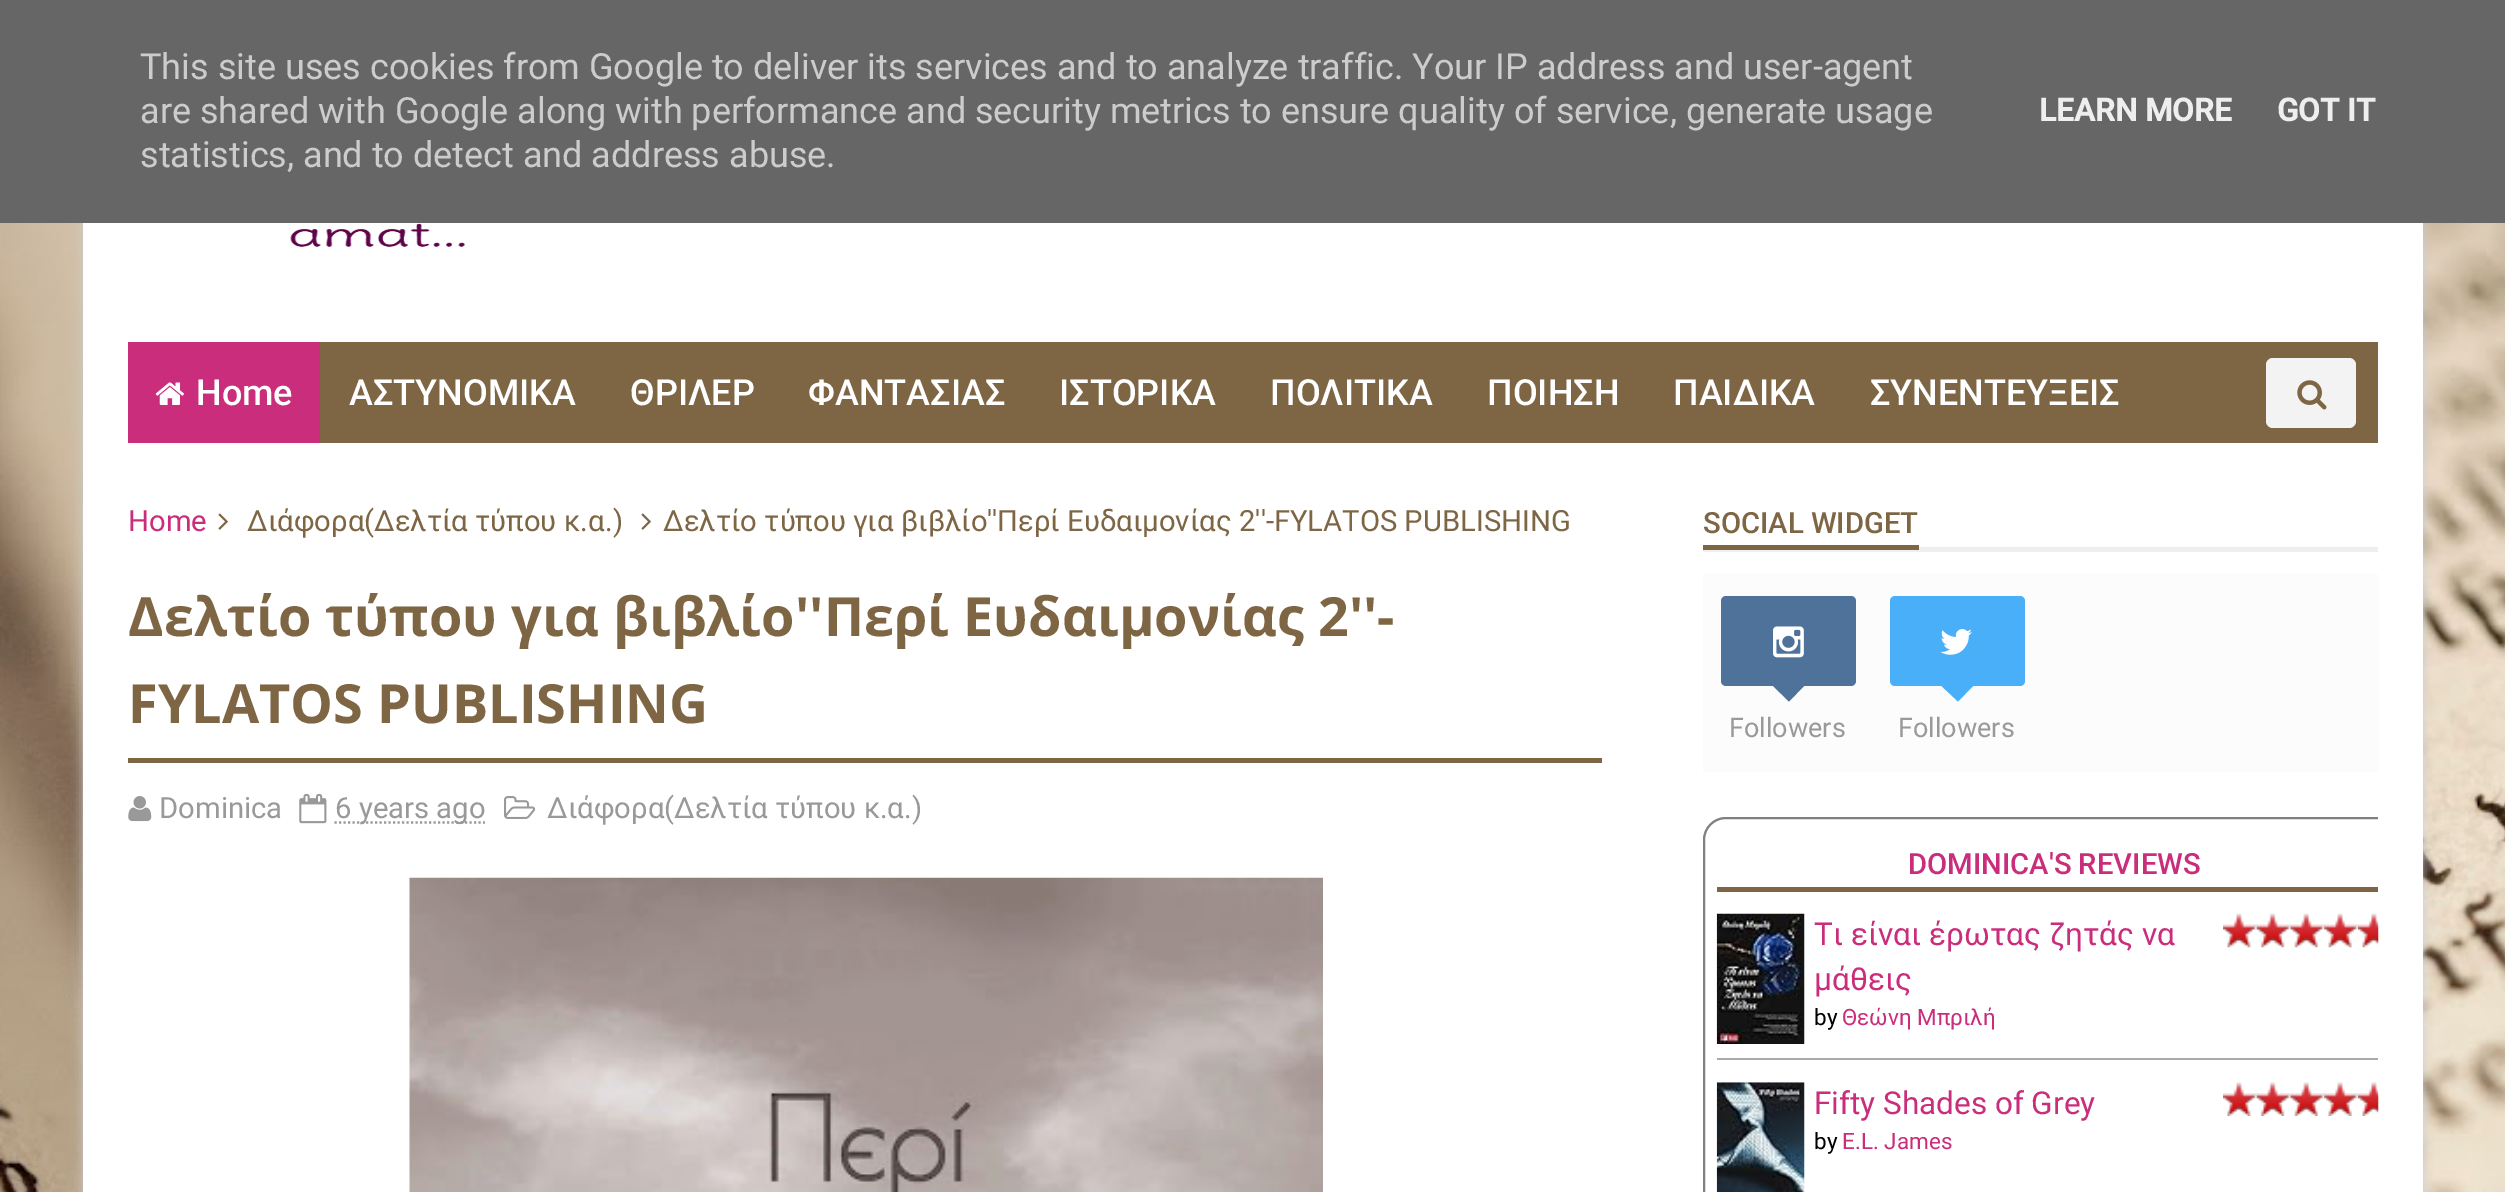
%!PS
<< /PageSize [2505 1192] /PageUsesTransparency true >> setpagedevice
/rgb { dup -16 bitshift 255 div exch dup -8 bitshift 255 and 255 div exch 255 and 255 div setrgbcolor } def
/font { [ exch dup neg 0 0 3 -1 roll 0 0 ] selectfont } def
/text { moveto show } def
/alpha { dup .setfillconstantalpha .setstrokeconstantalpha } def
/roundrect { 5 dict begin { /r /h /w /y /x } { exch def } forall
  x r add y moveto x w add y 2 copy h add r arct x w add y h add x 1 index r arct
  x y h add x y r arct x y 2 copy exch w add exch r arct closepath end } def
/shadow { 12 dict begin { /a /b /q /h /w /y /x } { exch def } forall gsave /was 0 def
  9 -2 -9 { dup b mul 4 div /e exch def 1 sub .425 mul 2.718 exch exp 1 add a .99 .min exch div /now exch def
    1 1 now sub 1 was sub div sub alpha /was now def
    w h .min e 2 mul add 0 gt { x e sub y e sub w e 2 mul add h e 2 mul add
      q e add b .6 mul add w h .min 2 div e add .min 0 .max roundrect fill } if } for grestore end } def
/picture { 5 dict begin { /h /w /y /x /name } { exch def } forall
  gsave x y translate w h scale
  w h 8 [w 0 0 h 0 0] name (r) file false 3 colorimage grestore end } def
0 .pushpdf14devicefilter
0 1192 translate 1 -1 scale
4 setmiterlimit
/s1 { /Roboto-Regular 36 font 16#CCCCCC rgb } def
/s2 { /Roboto-Bold 31.5 font 16#EEEEEE rgb } def
/s3 { /Roboto-Medium 36 font 16#FFFFFF rgb } def
/s4 { /Roboto-Regular 29.25 font 16#CA2D7B rgb } def
/s5 { /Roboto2-Regular 29.25 font 16#7E6645 rgb } def
/s6 { /Roboto-Regular 29.25 font 16#7E6645 rgb } def
/s7 { /OpenSans-Bold 54 font 16#7E6645 rgb } def
/s8 { /Roboto-Regular 29.25 font 16#999999 rgb } def
/s9 { /Roboto2-Regular 29.25 font 16#999999 rgb } def
/s10 { /Roboto-Medium 29.25 font 16#7E6645 rgb } def
/s11 { /Roboto-Regular 27 font 16#999999 rgb } def
/s12 { /Roboto-Medium 29.25 font 16#CA2D7B rgb } def
/s13 { /Roboto2-Regular 31.5 font 16#CA2D7B rgb } def
/s14 { /Roboto-Regular 22.5 font 16#000000 rgb } def
/s15 { /Roboto2-Regular 22.5 font 16#CA2D7B rgb } def
/s16 { /Roboto-Regular 31.5 font 16#CA2D7B rgb } def
/s17 { /Roboto-Regular 22.5 font 16#CA2D7B rgb } def
16#FFFFFF rgb
0 0 2505 1192 rectfill
(pic1.raw) 0 223 2505 969 picture
16#CCCCCC rgb
83 0 2340 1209 0 5.5 1 shadow
16#666666 rgb
0 0 2505 223 rectfill
s1
(This site uses cookies from Google to deliver its services and to analyze traffic. Your IP address and user-agent) 140 79 text
(are shared with Google along with performance and security metrics to ensure quality of service, generate usage) 140 123 text
(statistics, and to detect and address abuse.) 140 167 text
s2
(LEARN MORE) 2039 121 text
(GOT IT) 2277 121 text
16#FFFFFF rgb
83 223 2340 969 rectfill
(pic2.raw) 290 223 176 24 picture
16#7E6645 rgb
320 342 2058 101 rectfill
16#CA2D7B rgb
128 342 192 101 rectfill
(pic3.raw) 155 382 29 23 picture
s3
(Home) 196 405 text
(ΑΣΤΥΝΟΜΙΚΑ) 349 405 text
(ΘΡΙΛΕΡ) 630 405 text
(ΦΑΝΤΑΣΙΑΣ) 808 405 text
(ΙΣΤΟΡΙΚΑ) 1059 405 text
(ΠΟΛΙΤΙΚΑ) 1270 405 text
(ΠΟΙΗΣΗ) 1487 405 text
(ΠΑΙΔΙΚΑ) 1673 405 text
(ΣΥΝΕΝΤΕΥΞΕΙΣ) 1870 405 text
16#F3F3F3 rgb
2266 358 90 70 7 roundrect fill
(pic4.raw) 2297 380 30 30 picture
s4
(Home) 128 531 text
(pic5.raw) 218 513 10 17 picture
s5
(Διάφορα) 247 531 text
s6
(\() 364 531 text
s5
(Δελτία τύπου κ) 374 531 text
s6
(.) 580 531 text
s5
(α) 588 531 text
s6
(.\)) 605 531 text
(pic5.raw) 641 513 10 17 picture
s5
(Δελτίο τύπου για βιβλίο) 663 531 text
s6
('') 987 531 text
s5
(Περί Ευδαιμονίας) 997 531 text
s6
(2''-FYLATOS PUBLISHING) 1239 531 text
128 758 1474 5 rectfill
s7
(Δελτίο τύπου για βιβλίο''Περί Ευδαιμονίας 2''-) 128 636 text
(FYLATOS PUBLISHING) 128 723 text
(pic6.raw) 128 796 24 26 picture
s8
(Dominica) 159 818 text
(pic7.raw) 299 793 28 31 picture
2.2 setlinewidth
[2.25 2.25] 0 setdash
334.5 822.5 moveto 485 822.5 lineto stroke
(6 years ago) 335 818 text
(pic8.raw) 504 796 32 23 picture
s9
(Διάφορα) 547 818 text
s8
(\() 664 818 text
s9
(Δελτία τύπου κ) 674 818 text
s8
(.) 880 818 text
s9
(α) 887 818 text
s8
(.\)) 904 818 text
(pic9.raw) 409 877 914 315 picture
16#EEEEEE rgb
1703 547 675 5 rectfill
16#7E6645 rgb
1703 545 216 5 rectfill
s10
(SOCIAL WIDGET) 1703 533 text
16#FCFCFC rgb
1703 574 675 198 rectfill
16#4E729A rgb
1721 596 135 90 5 roundrect fill
(pic10.raw) 1773 626 31 32 picture
1789 701.5 moveto 1773 686 lineto 1788.5 670 lineto 1804.5 685.5 lineto closepath fill
s11
(Followers) 1729 737 text
16#49AFF8 rgb
1890 596 135 90 5 roundrect fill
(pic11.raw) 1940 629 32 26 picture
1958 701.5 moveto 1941.5 686 lineto 1957.5 670 lineto 1973.5 685.5 lineto closepath fill
s11
(Followers) 1898 737 text
gsave
1703 817 675 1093 rectclip
16#808080 rgb
2 setlinewidth
[] 0 setdash
1704 818 700 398 22 roundrect stroke
grestore
16#7E6645 rgb
1717 887 661 5 rectfill
s12
(DOMINICA'S REVIEWS) 1908 874 text
16#AAAAAA rgb
1717 1058 661 2 rectfill
(pic12.raw) 1716 913 89 131 picture
s13
(Τι είναι έρωτας ζητάς να) 1814 945 text
(μάθεις) 1814 990 text
(pic13.raw) 2223 913 34 35 picture
(pic14.raw) 2256 913 35 35 picture
(pic15.raw) 2290 913 35 35 picture
(pic16.raw) 2324 913 34 35 picture
(pic17.raw) 2358 913 21 35 picture
s14
(by) 1814 1025 text
s15
(Θεώνη Μπριλή) 1842 1025 text
(pic18.raw) 1716 1082 89 110 picture
s16
(Fifty Shades of Grey) 1814 1114 text
(pic19.raw) 2223 1082 34 34 picture
(pic20.raw) 2256 1082 35 34 picture
(pic21.raw) 2290 1082 35 34 picture
(pic22.raw) 2324 1082 34 34 picture
(pic23.raw) 2358 1082 21 34 picture
s14
(by) 1814 1149 text
s17
(E.L. James) 1842 1149 text
.poppdf14devicefilter showpage
